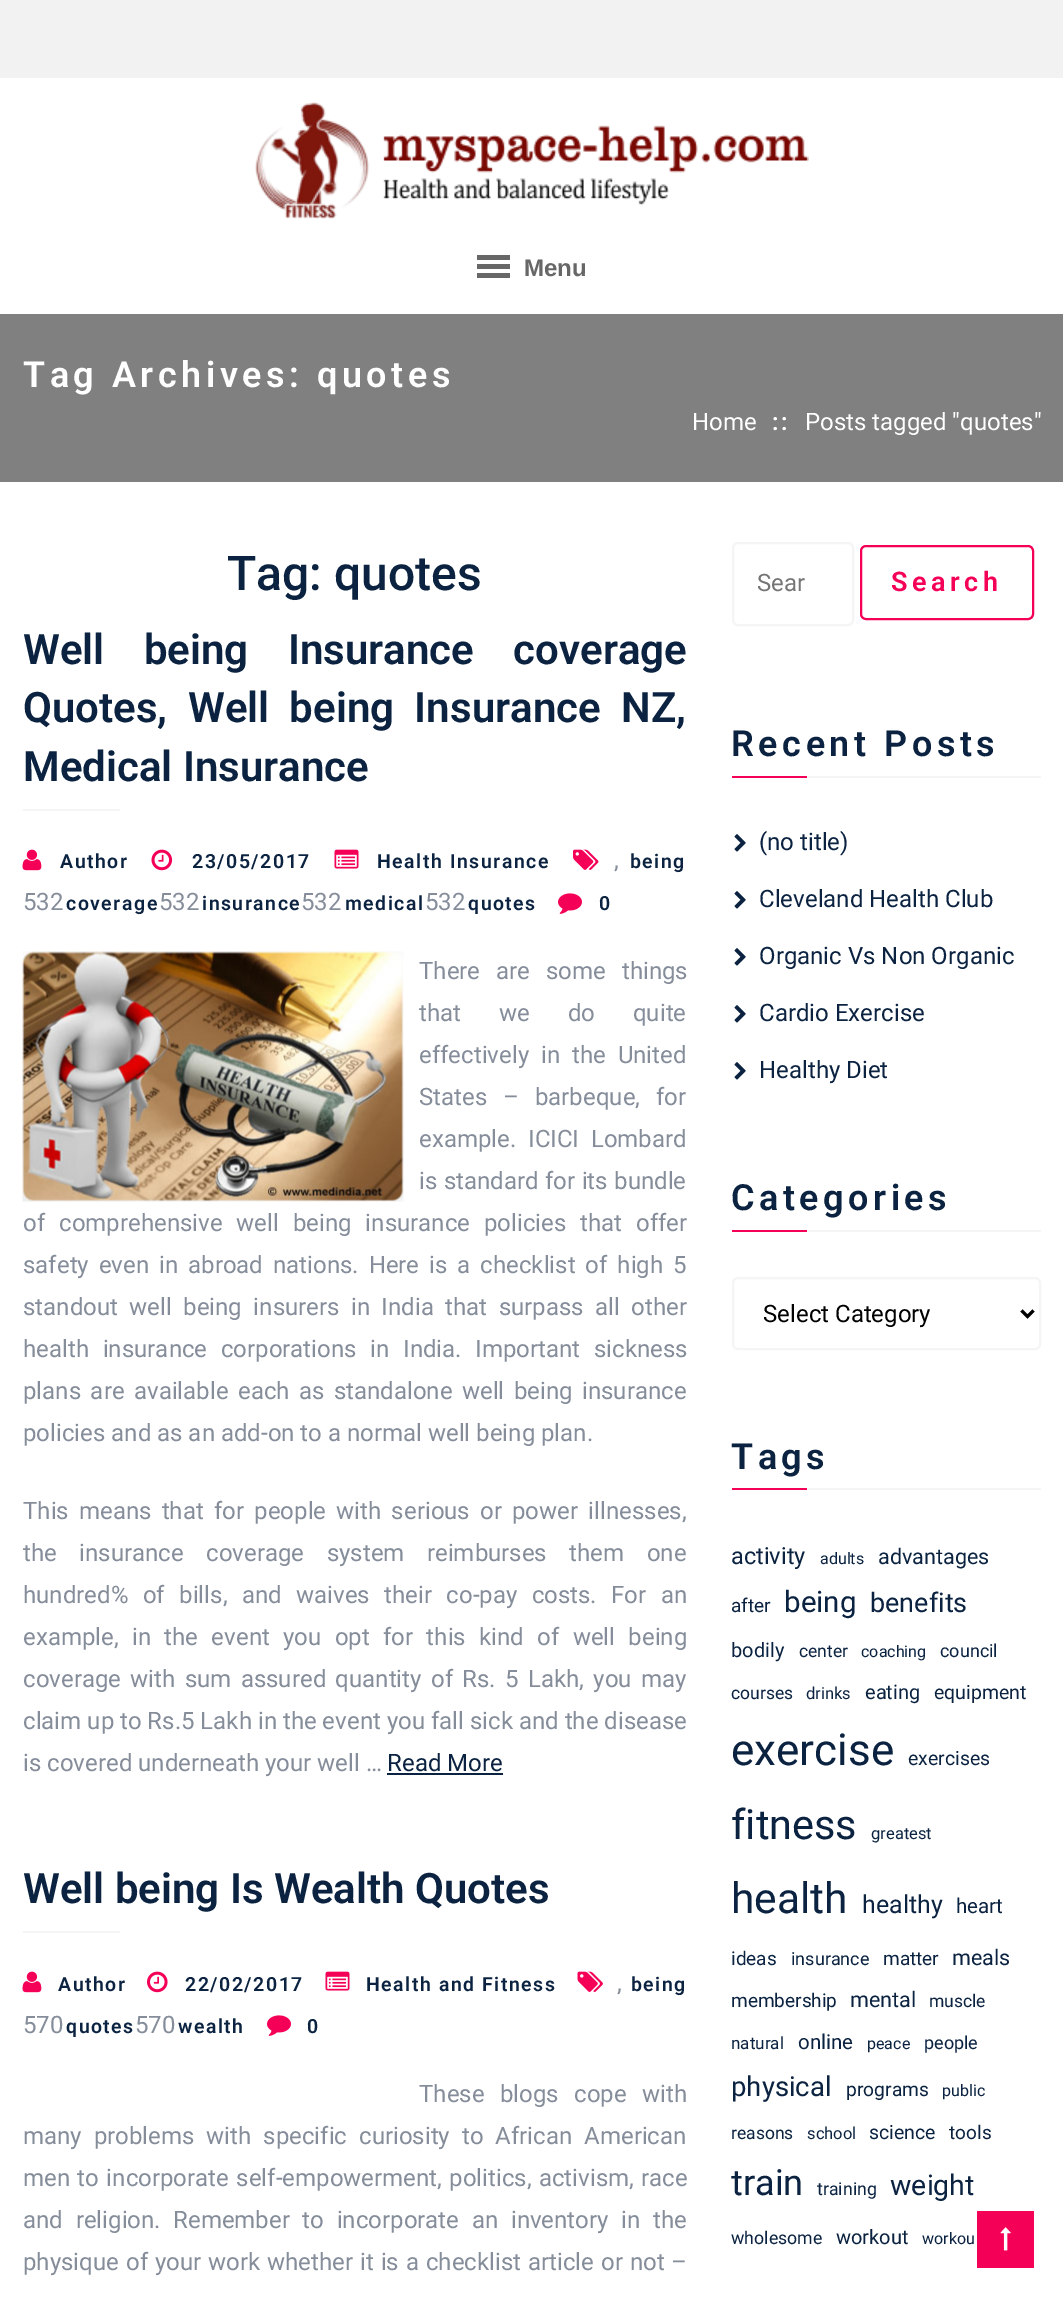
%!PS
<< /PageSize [1063 2297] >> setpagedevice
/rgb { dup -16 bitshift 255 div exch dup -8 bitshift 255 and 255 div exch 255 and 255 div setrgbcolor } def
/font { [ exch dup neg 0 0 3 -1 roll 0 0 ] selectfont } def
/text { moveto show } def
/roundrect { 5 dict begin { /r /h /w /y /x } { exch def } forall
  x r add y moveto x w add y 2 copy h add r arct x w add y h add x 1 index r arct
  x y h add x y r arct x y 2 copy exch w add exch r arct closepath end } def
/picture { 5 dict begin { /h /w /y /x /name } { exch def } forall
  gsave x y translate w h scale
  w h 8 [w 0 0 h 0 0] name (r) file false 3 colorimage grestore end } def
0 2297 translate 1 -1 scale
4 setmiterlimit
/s1 { /LiberationSans-Bold 24 font 16#676767 rgb } def
/s2 { /Roboto-Regular 24 font 16#FFFFFF rgb } def
/s3 { /Roboto-Medium 48 font 16#0B2341 rgb } def
/s4 { /Roboto-SemiBold 42 font 16#0B2341 rgb } def
/s5 { /Roboto-Regular 24 font 16#858D9A rgb } def
/s6 { /Roboto-Regular 24 font 16#0B2341 rgb } def
/s7 { /Roboto-Regular 24 font 16#757575 rgb } def
/s8 { /Roboto-Regular 24 font 16#000000 rgb } def
/s9 { /Roboto-Regular 23.5 font 16#0B2341 rgb } def
/s10 { /Roboto-Regular 16 font 16#0B2341 rgb } def
/s11 { /Roboto-Regular 21.5 font 16#0B2341 rgb } def
/s12 { /Roboto-Regular 19 font 16#0B2341 rgb } def
/s13 { /Roboto-Regular 29.5 font 16#0B2341 rgb } def
/s14 { /Roboto-Regular 27 font 16#0B2341 rgb } def
/s15 { /Roboto-Regular 20 font 16#0B2341 rgb } def
/s16 { /Roboto-Regular 17.5 font 16#0B2341 rgb } def
/s17 { /Roboto-Regular 18 font 16#0B2341 rgb } def
/s18 { /Roboto-Regular 16.5 font 16#0B2341 rgb } def
/s19 { /Roboto-Regular 19.5 font 16#0B2341 rgb } def
/s20 { /Roboto-Regular 44 font 16#0B2341 rgb } def
/s21 { /Roboto-Regular 41.5 font 16#0B2341 rgb } def
/s22 { /Roboto-Regular 42.5 font 16#0B2341 rgb } def
/s23 { /Roboto-Regular 25 font 16#0B2341 rgb } def
/s24 { /Roboto-Regular 20.5 font 16#0B2341 rgb } def
/s25 { /Roboto-Regular 17 font 16#0B2341 rgb } def
/s26 { /Roboto-Regular 27.5 font 16#0B2341 rgb } def
/s27 { /Roboto-Regular 19.25 font 16#0B2341 rgb } def
/s28 { /Roboto-Regular 36 font 16#0B2341 rgb } def
/s29 { /Roboto-Regular 17.75 font 16#0B2341 rgb } def
/s30 { /Roboto-Regular 28.5 font 16#0B2341 rgb } def
16#FFFFFF rgb
0 0 1063 2297 rectfill
16#F2F2F2 rgb
0 0 1063 78 rectfill
(pic1.raw) 255 102 554 117 picture
16#676767 rgb
477 255 33 5 rectfill
477 264 33 5 rectfill
477 273 33 5 rectfill
s1
(Menu) 524 276 text
16#808080 rgb
0 314 1063 168 rectfill
/Roboto-SemiBold 36 font
16#FFFFFF rgb
23 387 moveto 4.5 0 (Tag Archives: quotes) ashow
s2
(Home) 692 430 text
/Roboto-SemiBold 24 font
772 430 moveto 2 0 (::) ashow
s2
(Posts tagged "quotes") 805 430 text
s3
(Tag: quotes) 227 590 text
/Roboto-SemiBold 42 font
23 664 moveto 29 0 32 (Well being Insurance coverage) widthshow
23 722 moveto 10 0 32 (Quotes, Well being Insurance NZ,) widthshow
(Medical Insurance) 23 781 text
16#F5F5F5 rgb
23 809 97 2 rectfill
(pic2.raw) 573 849 26 21 picture
s5
(,) 614 868 text
/Roboto-SemiBold 19.5 font
16#0B2341 rgb
630 868 moveto 1.5 0 (being) ashow
s5
(532) 23 910 text
/Roboto-SemiBold 19.5 font
16#0B2341 rgb
66 910 moveto 1.5 0 (coverage) ashow
s5
(532) 159 910 text
/Roboto-SemiBold 19.5 font
16#0B2341 rgb
202 910 moveto 1.5 0 (insurance) ashow
s5
(532) 301 910 text
/Roboto-SemiBold 19.5 font
16#0B2341 rgb
345 910 moveto 1.5 0 (medical) ashow
s5
(532) 425 910 text
/Roboto-SemiBold 19.5 font
16#0B2341 rgb
468 910 moveto 1.5 0 (quotes) ashow
(pic3.raw) 22 849 20 22 picture
60 868 moveto 1.5 0 (Author) ashow
(pic4.raw) 151 849 22 22 picture
192 868 moveto 1.5 0 (23/05/2017) ashow
(pic5.raw) 334 849 25 20 picture
377 868 moveto 1.5 0 (Health Insurance) ashow
(pic6.raw) 558 893 24 21 picture
599 910 moveto 1.5 0 (0) ashow
(pic7.raw) 22 951 382 251 picture
/Roboto-Regular 24 font
16#858D9A rgb
419 979 moveto 10 0 32 (There are some things) widthshow
419 1021 moveto 32 0 32 (that we do quite) widthshow
419 1063 moveto 6 0 32 (effectively in the United) widthshow
419 1105 moveto 10 0 32 (States – barbeque, for) widthshow
(example.) 419 1147 text
528 1147 moveto 6 0 32 (ICICI Lombard) widthshow
419 1189 moveto 0.5 0 32 (is standard for its bundle) widthshow
23 1231 moveto 8 0 32 (of comprehensive well being insurance policies that offer) widthshow
23 1273 moveto 4 0 32 (safety even in abroad nations. Here is a checklist of high 5) widthshow
23 1315 moveto 5.5 0 32 (standout well being insurers in India that surpass all other) widthshow
23 1357 moveto 7.75 0 32 (health insurance corporations in India. Important sickness) widthshow
23 1399 moveto 3.5 0 32 (plans are available each as standalone well being insurance) widthshow
(policies and as an add-on to a normal well being plan.) 23 1441 text
23 1519 moveto 4.25 0 32 (This means that for people with serious or) widthshow
512 1519 moveto 4.25 0 32 (power illnesses,) widthshow
23 1561 moveto 16.5 0 32 (the insurance coverage system reimburses them one) widthshow
23 1603 moveto 8.5 0 32 (hundred% of bills, and waives their co-pay costs. For an) widthshow
23 1645 moveto 7.4 0 32 (example, in the event you opt for this kind of well being) widthshow
23 1687 moveto 3.4 0 32 (coverage with sum assured quantity of Rs. 5 Lakh, you may) widthshow
(claim up to Rs.5 Lakh in the event you fall sick and the disease) 23 1729 text
(is covered underneath your well …) 23 1771 text
s6
(Read More) 387 1771 text
387 1773 116 2 rectfill
s4
(Well being Is Wealth Quotes) 23 1903 text
16#F5F5F5 rgb
23 1931 97 2 rectfill
(pic8.raw) 577 1971 26 21 picture
s5
(,) 617 1991 text
/Roboto-SemiBold 19.5 font
16#0B2341 rgb
631 1991 moveto 1.5 0 (being) ashow
s5
(570) 23 2033 text
/Roboto-SemiBold 19.5 font
16#0B2341 rgb
66 2033 moveto 1.5 0 (quotes) ashow
s5
(570) 135 2033 text
/Roboto-SemiBold 19.5 font
16#0B2341 rgb
178 2033 moveto 1.5 0 (wealth) ashow
(pic3.raw) 22 1971 20 22 picture
58 1991 moveto 1.5 0 (Author) ashow
(pic9.raw) 147 1971 21 22 picture
185 1991 moveto 1.5 0 (22/02/2017) ashow
(pic5.raw) 325 1971 25 20 picture
366 1991 moveto 1.5 0 (Health and Fitness) ashow
(pic6.raw) 267 2015 24 21 picture
307 2033 moveto 1.5 0 (0) ashow
/Roboto-Regular 24 font
16#858D9A rgb
419 2102 moveto 9.5 0 32 (These blogs cope with) widthshow
23 2144 moveto 6 0 32 (many problems with specific curiosity to African American) widthshow
23 2186 moveto 1.5 0 32 (men to incorporate self-empowerment, politics, activism, race) widthshow
23 2228 moveto 6.75 0 32 (and religion.) widthshow
173 2228 moveto 6.75 0 32 (Remember to incorporate an inventory in the) widthshow
23 2270 moveto 1 0 32 (physique of your work whether it is a checklist article or not –) widthshow
16#F5F5F5 rgb
2 setlinewidth
733 543 120 82 5 roundrect stroke
s7
(Sear) 757 591 text
16#F50057 rgb
861 546 172 73 5 roundrect stroke
/Roboto-SemiBold 27 font
891 591 moveto 4.5 0 (Search) ashow
16#F5F5F5 rgb
807 776 234 2 rectfill
/Roboto-SemiBold 36 font
16#0B2341 rgb
731 756 moveto 4.5 0 (Recent Posts) ashow
16#F50057 rgb
732 776 75 2 rectfill
(pic10.raw) 734 834 12 18 picture
s6
(\(no title\)) 759 850 text
(pic10.raw) 734 891 12 18 picture
(Cleveland Health Club) 759 907 text
(pic10.raw) 734 948 12 18 picture
(Organic Vs Non Organic) 759 964 text
(pic10.raw) 734 1005 12 18 picture
(Cardio Exercise) 759 1021 text
(pic10.raw) 734 1062 12 18 picture
(Healthy Diet) 759 1078 text
16#F5F5F5 rgb
807 1230 234 2 rectfill
/Roboto-SemiBold 36 font
16#0B2341 rgb
731 1210 moveto 4.5 0 (Categories) ashow
16#F50057 rgb
732 1230 75 2 rectfill
16#F5F5F5 rgb
733 1278 307 71 5 roundrect stroke
16#000000 rgb
3 setlinewidth
1021.5 1310.5 moveto 1027.5 1316.5 lineto 1033.5 1310.5 lineto stroke
s8
(Select Category) 763 1322 text
16#F5F5F5 rgb
807 1488 234 2 rectfill
/Roboto-SemiBold 36 font
16#0B2341 rgb
731 1469 moveto 4.5 0 (Tags) ashow
16#F50057 rgb
732 1488 75 2 rectfill
s9
(activity) 731 1564 text
s10
(adults) 820 1564 text
s11
(advantages) 878 1564 text
s12
(after) 731 1612 text
s13
(being) 784 1612 text
s14
(benefits) 870 1612 text
s15
(bodily) 731 1657 text
s16
(center) 799 1657 text
s10
(coaching) 861 1657 text
s17
(council) 940 1657 text
s16
(courses) 731 1699 text
s18
(drinks) 806 1699 text
s15
(eating) 865 1699 text
s19
(equipment) 934 1699 text
s20
(exercise) 731 1765 text
s19
(exercises) 908 1765 text
s21
(fitness) 731 1839 text
s18
(greatest) 871 1839 text
s22
(health) 731 1913 text
s23
(healthy) 862 1913 text
s24
(heart) 956 1913 text
s12
(ideas) 731 1965 text
s17
(insurance) 791 1965 text
s12
(matter) 883 1965 text
s11
(meals) 952 1965 text
s12
(membership) 731 2007 text
s11
(mental) 850 2007 text
s16
(muscle) 929 2007 text
s25
(natural) 731 2049 text
s24
(online) 798 2049 text
s10
(peace) 867 2049 text
s17
(people) 924 2049 text
s26
(physical) 731 2096 text
s27
(programs) 846 2096 text
s10
(public) 942 2096 text
s16
(reasons) 731 2139 text
s18
(school) 807 2139 text
s19
(science) 869 2139 text
s12
(tools) 949 2139 text
s28
(train) 731 2195 text
s29
(training) 817 2195 text
s30
(weight) 890 2195 text
s29
(wholesome) 731 2244 text
s15
(workout) 836 2244 text
s10
(workou) 922 2244 text
16#F50057 rgb
977 2211 57 57 rectfill
(pic11.raw) 1000 2227 11 24 picture
showpage
